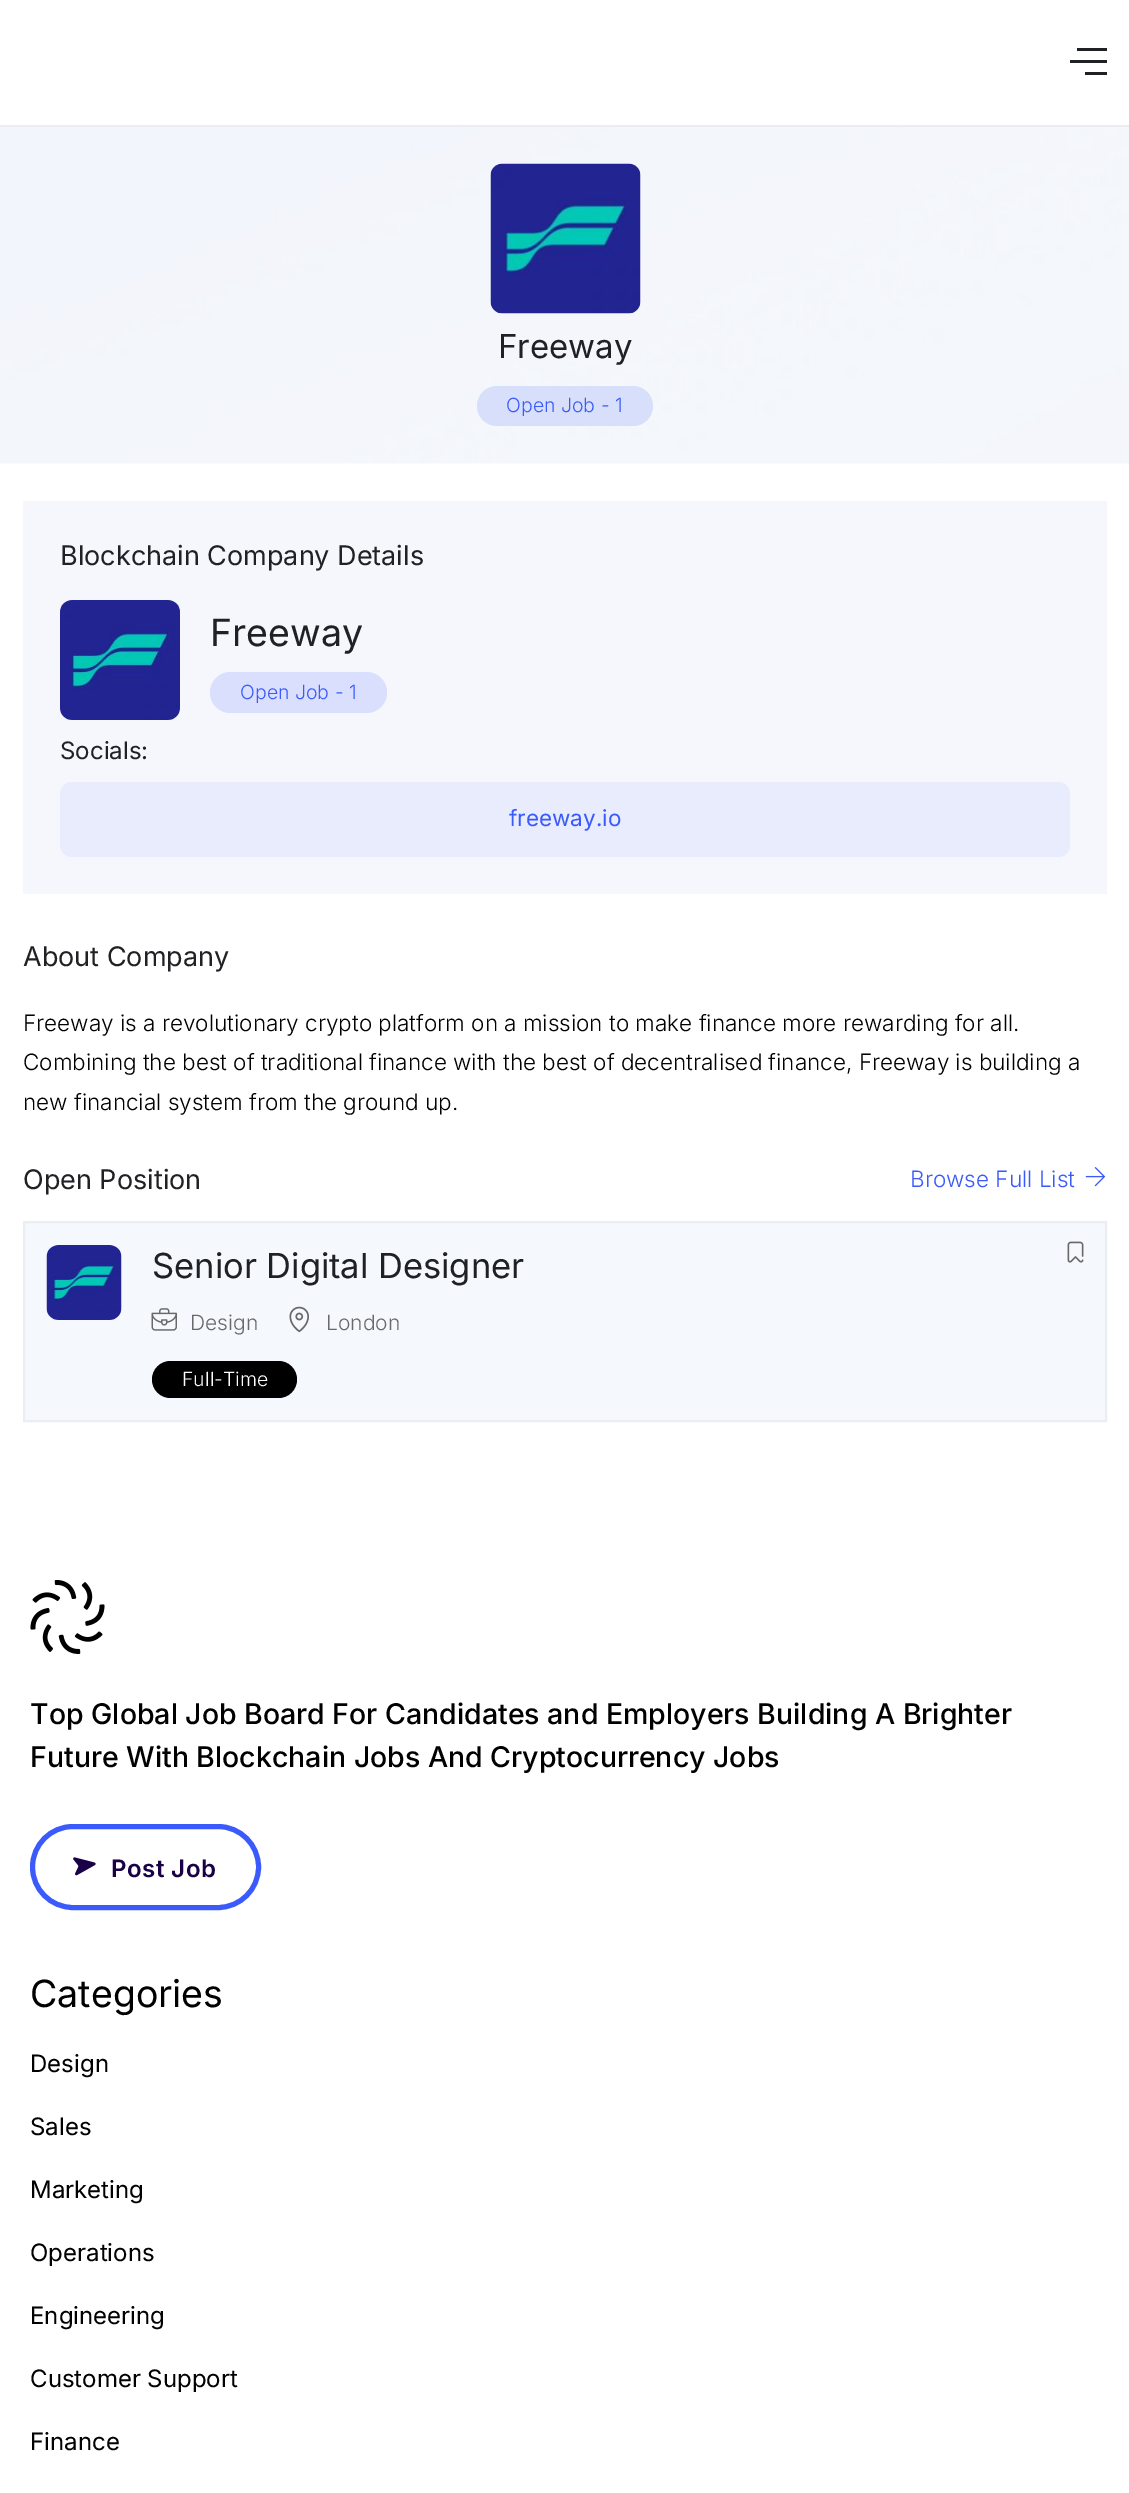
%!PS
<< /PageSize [1129 2493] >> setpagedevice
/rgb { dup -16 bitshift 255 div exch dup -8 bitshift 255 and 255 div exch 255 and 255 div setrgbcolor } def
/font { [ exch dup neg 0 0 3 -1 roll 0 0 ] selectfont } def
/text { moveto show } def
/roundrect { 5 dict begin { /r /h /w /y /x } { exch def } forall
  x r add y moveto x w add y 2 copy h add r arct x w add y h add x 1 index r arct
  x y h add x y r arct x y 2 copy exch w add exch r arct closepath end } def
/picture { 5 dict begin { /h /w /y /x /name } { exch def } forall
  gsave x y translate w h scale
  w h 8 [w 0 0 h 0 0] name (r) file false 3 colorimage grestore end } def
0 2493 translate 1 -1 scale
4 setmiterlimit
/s1 { /Inter-Regular 33 font 16#202124 rgb } def
/s2 { /Inter-Light 19.5 font 16#3B5AFB rgb } def
/s3 { /Inter-Regular 27 font 16#202124 rgb } def
/s4 { /Inter-Regular 37.5 font 16#202124 rgb } def
/s5 { /Inter-Regular 24 font 16#202124 rgb } def
/s6 { /Inter-Regular 22.5 font 16#3B5AFB rgb } def
/s7 { /Inter-Light 22.5 font 16#000000 rgb } def
/s8 { /Inter-Light 22.5 font 16#3B5AFB rgb } def
/s9 { /Inter-Regular 34.5 font 16#202124 rgb } def
/s10 { /Inter-Light 21 font 16#696969 rgb } def
/s11 { /Inter-Light 19.5 font 16#FFFFFF rgb } def
/s12 { /Inter-Medium 28.5 font 16#000000 rgb } def
/s13 { /Inter-Regular 37.5 font 16#000000 rgb } def
/s14 { /Inter-Regular 24 font 16#000000 rgb } def
16#FFFFFF rgb
0 0 1129 2493 rectfill
16#ECEDF2 rgb
0 125 1129 2 rectfill
16#202124 rgb
1077 48 30 3 rectfill
1070 60 37 3 rectfill
1085 72 22 3 rectfill
(pic1.raw) 0 127 1129 337 picture
(pic2.raw) 490 163 151 151 picture
s1
(Freeway) 498 358 text
16#D8DFFB rgb
477 386 176 40 20 roundrect fill
s2
(Open Job - 1) 506 412 text
16#F5F7FC rgb
23 501 1084 393 rectfill
s3
(Blockchain Company Details) 60 565 text
(pic3.raw) 60 600 120 120 picture
s4
(Freeway) 210 646 text
16#D9DFFC rgb
210 672 177 41 20.5 roundrect fill
s2
(Open Job - 1) 240 699 text
s5
(Socials:) 60 759 text
16#E8ECFC rgb
60 782 1010 75 12 roundrect fill
s6
(freeway.io) 509 826 text
s3
(About Company) 23 966 text
s7
(Freeway is a revolutionary crypto platform on a mission to make finance more rewarding for all.) 23 1031 text
(Combining the best of traditional finance with the best of decentralised finance, Freeway is building a) 23 1070 text
(new financial system from the ground up.) 23 1110 text
s3
(Open Position) 23 1189 text
s8
(Browse Full List) 910 1187 text
(pic4.raw) 1085 1167 21 20 picture
16#F5F9FE rgb
24 1222 moveto 1106 1222 lineto 1106 1421 lineto 24 1421 lineto closepath gsave fill grestore
16#ECEDF2 rgb
2 setlinewidth
stroke
(pic5.raw) 46 1245 76 75 picture
s9
(Senior Digital Designer) 152 1278 text
(pic6.raw) 151 1308 26 23 picture
s10
(Design) 190 1330 text
(pic7.raw) 289 1306 21 27 picture
(London) 326 1330 text
16#000000 rgb
152 1361 145 37 18.5 roundrect fill
s11
(Full-Time) 182 1386 text
(pic8.raw) 1067 1241 17 22 picture
(pic9.raw) 30 1580 75 75 picture
s12
(Top Global Job Board For Candidates and Employers Building A Brighter) 30 1724 text
(Future With Blockchain Jobs And Cryptocurrency Jobs) 30 1767 text
16#3B5AFB rgb
5 setlinewidth
32.5 1826.5 226 81 40.5 roundrect stroke
(pic10.raw) 73 1857 23 19 picture
/Inter-SemiBold 24 font
16#1A0147 rgb
111 1877 moveto 0.5 0 (Post Job) ashow
s13
(Categories) 30 2007 text
s14
(Design) 30 2072 text
(Sales) 30 2135 text
(Marketing) 30 2198 text
(Operations) 30 2261 text
(Engineering) 30 2324 text
(Customer Support) 30 2387 text
(Finance) 30 2450 text
showpage
